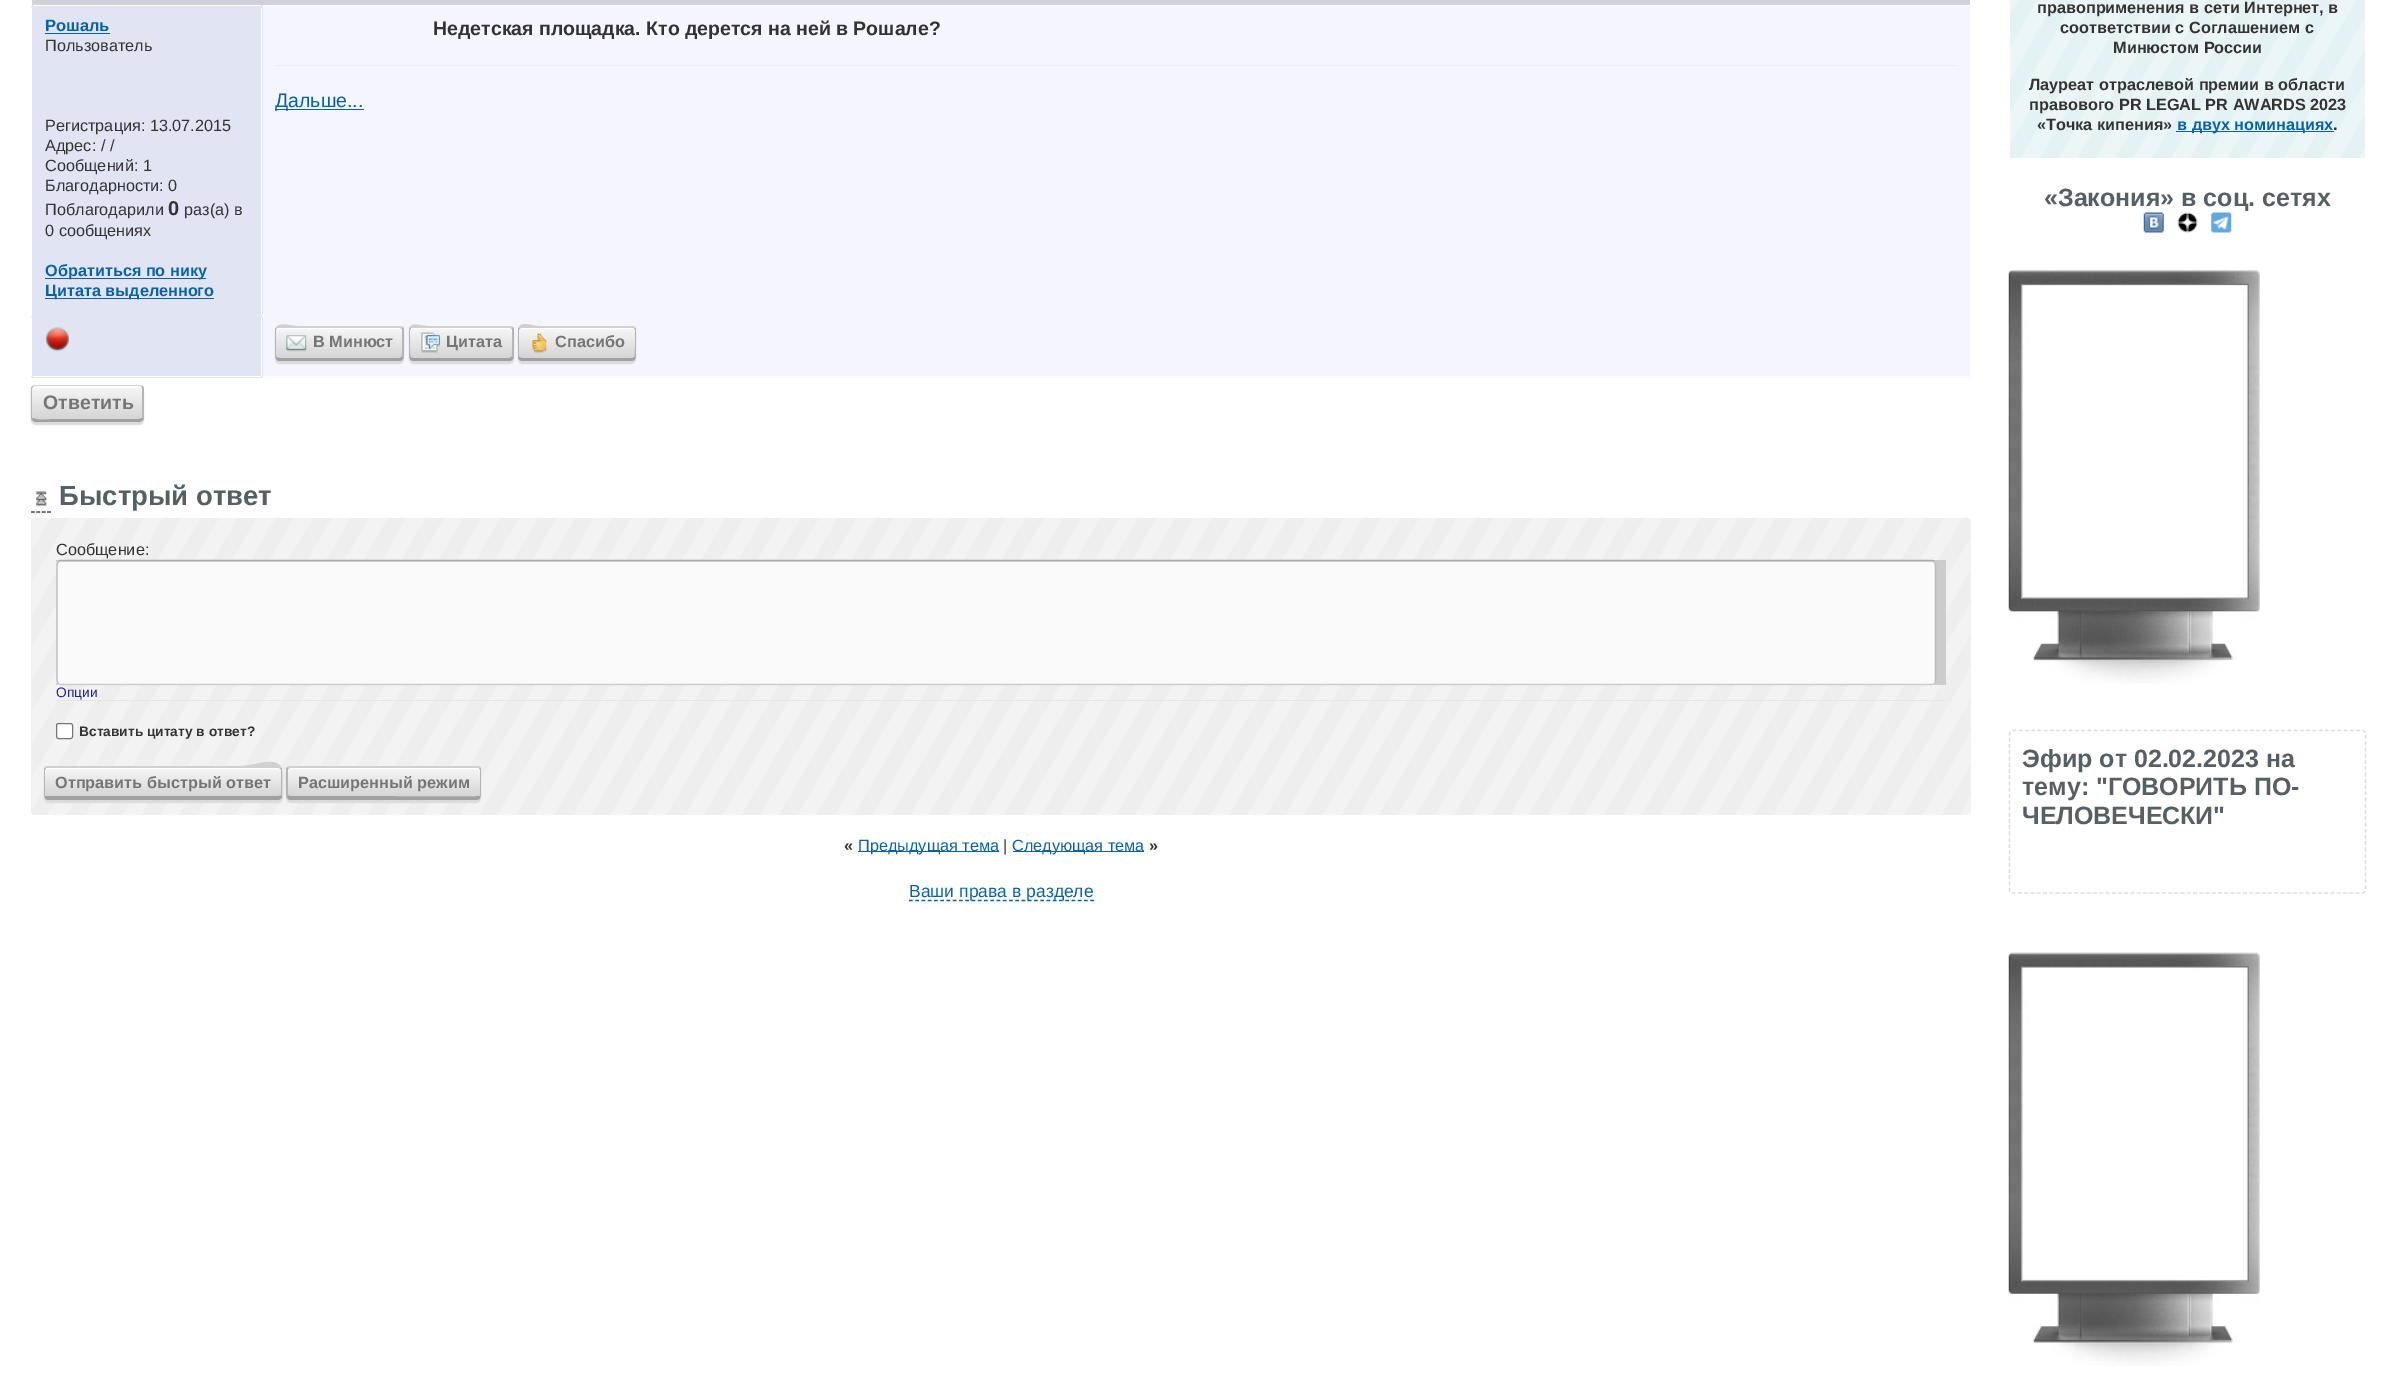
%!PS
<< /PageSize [2397 1373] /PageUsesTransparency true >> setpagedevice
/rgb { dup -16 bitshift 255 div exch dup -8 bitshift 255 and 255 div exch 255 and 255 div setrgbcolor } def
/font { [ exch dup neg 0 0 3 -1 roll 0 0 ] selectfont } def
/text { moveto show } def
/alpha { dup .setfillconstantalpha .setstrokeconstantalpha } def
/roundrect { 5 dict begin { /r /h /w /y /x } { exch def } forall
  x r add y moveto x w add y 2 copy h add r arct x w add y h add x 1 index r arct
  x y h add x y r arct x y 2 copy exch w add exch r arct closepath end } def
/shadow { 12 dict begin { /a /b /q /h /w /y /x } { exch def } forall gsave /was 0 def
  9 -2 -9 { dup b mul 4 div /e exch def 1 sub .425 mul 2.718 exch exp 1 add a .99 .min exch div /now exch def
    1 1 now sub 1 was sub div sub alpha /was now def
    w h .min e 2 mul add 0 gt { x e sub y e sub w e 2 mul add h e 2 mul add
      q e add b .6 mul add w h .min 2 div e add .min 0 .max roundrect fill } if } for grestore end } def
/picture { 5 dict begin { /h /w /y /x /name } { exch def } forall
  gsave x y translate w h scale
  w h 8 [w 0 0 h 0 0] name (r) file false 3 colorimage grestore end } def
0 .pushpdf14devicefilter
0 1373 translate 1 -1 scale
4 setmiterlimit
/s1 { /LiberationSans-Bold 16.5 font 16#0762A9 rgb } def
/s2 { /LiberationSans-Regular 16.25 font 16#333333 rgb } def
/s3 { /LiberationSans-Bold 20 font 16#333333 rgb } def
/s4 { /LiberationSans-Bold 16.25 font 16#0762A9 rgb } def
/s5 { /LiberationSans-Bold 19.5 font 16#333333 rgb } def
/s6 { /LiberationSans-Regular 19.5 font 16#0762A9 rgb } def
/s7 { /LiberationSans-Bold 16.25 font 16#757575 rgb } def
/s8 { /LiberationSans-Bold 19.5 font 16#757575 rgb } def
/s9 { /LiberationSans-Bold 27.5 font 16#555F66 rgb } def
/s10 { /LiberationSans-Regular 13.75 font 16#22229C rgb } def
/s11 { /LiberationSans-Bold 13.75 font 16#333333 rgb } def
/s12 { /LiberationSans-Bold 16.25 font 16#333333 rgb } def
/s13 { /LiberationSans-Regular 16.25 font 16#0762A9 rgb } def
/s14 { /LiberationSans-Regular 17.5 font 16#0762A9 rgb } def
/s15 { /LiberationSans-Bold 25 font 16#555F66 rgb } def
16#FFFFFF rgb
0 0 2397 1373 rectfill
16#D0D1DA rgb
31 -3 232 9 2.5 roundrect fill
16#FFFFFF rgb
33 5 228 1 rectfill
31 0 1 5 rectfill
16#D0D1DA rgb
263 -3 1708 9 2.5 roundrect fill
16#FFFFFF rgb
1970 0 1 5 rectfill
264 5 1706 1 rectfill
16#E1E4F2 rgb
31 6 232 310 2.5 roundrect fill
16#FFFFFF rgb
261 8 1 307 rectfill
31 8 1 307 rectfill
s1
(Рошаль) 45 31 text
45 33 65 1 rectfill
s2
(Пользователь) 45 51 text
(Регистрация: 13.07.2015) 45 131 text
(Адрес: / /) 45 151 text
(Сообщений: 1) 45 171 text
(Благодарности: 0) 45 191 text
(Поблагодарили) 45 215 text
s3
(0) 168 215 text
s2
(раз\(а\) в) 184 215 text
(0 сообщениях) 45 236 text
16#0762A9 rgb
45 278 161 1 rectfill
s4
(Обратиться по нику) 45 276 text
45 298 169 1 rectfill
(Цитата выделенного) 45 296 text
16#F5F5FF rgb
263 6 1708 310 2.5 roundrect fill
16#FFFFFF rgb
1970 8 1 307 rectfill
s5
(Недетская площадка. Кто дерется на ней в Рошале?) 433 35 text
16#EEEEEE rgb
275 65 1683 1 rectfill
16#0762A9 rgb
275 109 89 1 rectfill
s6
(Дальше...) 275 107 text
16#E1E4F2 rgb
31 316 232 62 2.5 roundrect fill
16#FFFFFF rgb
261 318 1 58 rectfill
33 376 228 1 rectfill
31 318 1 58 rectfill
(pic1.raw) 46 327 23 25 picture
16#F5F5FF rgb
263 316 1708 62 2.5 roundrect fill
16#FFFFFF rgb
1970 318 1 58 rectfill
264 376 1706 1 rectfill
16#DADADA rgb
275 329 129 35 5 0.5 1 shadow
gsave 279 328 moveto 400 328 lineto 401 328 402 329 402 330 curveto 402 356 lineto 402 357 401 358 399 358 curveto 280 358 lineto 278 358 276 357 276 356 curveto 276 330 lineto 276 329 277 328 279 328 curveto closepath clip newpath
<< /ShadingType 2 /ColorSpace /DeviceRGB /Coords [339 328 339 358] /Extend [true true] /Function << /FunctionType 2 /Domain [0 1] /C0 [0.969 0.969 0.969] /C1 [0.835 0.835 0.835] /N 1 >> >> shfill grestore
16#FFFFFF rgb
279 329 moveto 400 329 lineto 401 329 402 330 402 331 curveto 402 357 lineto 402 356 lineto 402 330 lineto 402 329 401 328 400 328 curveto 279 328 lineto 277 328 276 329 276 330 curveto 277 330 278 329 279 329 curveto closepath fill
16#D0D0D0 rgb
279 328 moveto 277 328 lineto 276 327 lineto 281 322 291 326 298 326 curveto 401 326 lineto 403 327 lineto 401 329 lineto 400 328 lineto closepath fill
16#B5B5B5 rgb
404 357.5 moveto 403 359 lineto 402 356 lineto 402 330 lineto 402 329.5 402 329 401.5 328.5 curveto 403 327 lineto 404 328.5 lineto closepath fill
16#A0A0A0 rgb
403 359 moveto 402 360 401 361 399 361 curveto 280 361 lineto 278 361 277 360 276 359 curveto 276 357 lineto 277 358 279 358 280 358 curveto 399 358 lineto 401 358 402 357 402 356 curveto closepath fill
16#B5B5B5 rgb
275 330 moveto 275 356 lineto 275 357 275.5 358 276 359 curveto 276.5 357 lineto 276 356 lineto 276 329.5 lineto 277 328.5 lineto 276 327.5 lineto 275.5 328 275 329 275 330 curveto closepath fill
(pic2.raw) 286 335 21 17 picture
s7
(В Минюст) 313 347 text
16#DADADA rgb
409 329 105 35 5 0.5 1 shadow
gsave 412 328 moveto 510 328 lineto 511 328 512 329 512 330 curveto 512 356 lineto 512 357 511 358 509 358 curveto 414 358 lineto 412 358 410 357 410 356 curveto 410 330 lineto 410 329 411 328 412 328 curveto closepath clip newpath
<< /ShadingType 2 /ColorSpace /DeviceRGB /Coords [461 328 461 358] /Extend [true true] /Function << /FunctionType 2 /Domain [0 1] /C0 [0.969 0.969 0.969] /C1 [0.835 0.835 0.835] /N 1 >> >> shfill grestore
16#FFFFFF rgb
412 329 moveto 510 329 lineto 511 329 512 330 512 331 curveto 512 357 lineto 513 356 512 345 512 343 curveto 512 323 516 328 494 328 curveto 429 328 lineto 427 328 410 323 410 331 curveto 410 330 411 329 412 329 curveto closepath fill
16#D0D0D0 rgb
412 328 moveto 411 328 lineto 410 327 lineto 413 322 422 326 428 326 curveto 511 326 lineto 513 327 lineto 511 329 lineto 510 328 lineto closepath fill
16#B5B5B5 rgb
514 357.5 moveto 513 359 lineto 512 356 lineto 512 330 lineto 512 329.5 512 329 511.5 328.5 curveto 513 327 lineto 514 328.5 lineto closepath fill
16#A0A0A0 rgb
513 359 moveto 512 360 511 361 509 361 curveto 414 361 lineto 412 361 410 360 410 359 curveto 410 357 lineto 413 358 lineto 509 358 lineto 510 358 512 357 512 356 curveto closepath fill
16#B5B5B5 rgb
409.5 358.5 moveto 409 358 409 357 409 356 curveto 409 330 lineto 409 329 409 328 410 327 curveto 411 328.5 lineto 410 330 lineto 409.5 332 410 356 410.5 356.5 curveto closepath fill
(pic3.raw) 421 332 19 21 picture
s7
(Цитата) 446 347 text
16#DADADA rgb
518 329 118 35 5 0.5 1 shadow
gsave 521 328 moveto 632 328 lineto 634 328 635 329 635 330 curveto 635 356 lineto 635 357 633 358 631 358 curveto 522 358 lineto 520 358 519 357 519 356 curveto 519 330 lineto 519 329 520 328 521 328 curveto closepath clip newpath
<< /ShadingType 2 /ColorSpace /DeviceRGB /Coords [577 328 577 358] /Extend [true true] /Function << /FunctionType 2 /Domain [0 1] /C0 [0.969 0.969 0.969] /C1 [0.835 0.835 0.835] /N 1 >> >> shfill grestore
16#FFFFFF rgb
521 329 moveto 632 329 lineto 635 330 lineto 635 331 lineto 635 329 635 328 632 328 curveto 521 328 lineto 518 328 519 333 519 334 curveto 519 357 lineto 519 331 lineto 519 330 520 329 521 329 curveto closepath fill
16#D0D0D0 rgb
521 328 moveto 520 329 lineto 519 327 lineto 522 321 532 326 539 326 curveto 634 326 lineto 635 327 lineto 634 328 lineto 632 328 lineto closepath fill
16#B5B5B5 rgb
635 327.5 moveto 636 328 636 329 636 330 curveto 636 356 lineto 636 357 636 358 635.5 358.5 curveto 634.5 356.5 lineto 635 356 635.5 332 635 330 curveto 634 328.5 lineto closepath fill
16#A0A0A0 rgb
635 359 moveto 635 360 633 361 631 361 curveto 522 361 lineto 521 361 519 360 518 358 curveto 519 356 lineto 519 357 520 358 522 358 curveto 631 358 lineto 633 358 634 357 635 357 curveto closepath fill
16#B5B5B5 rgb
518.5 358.5 moveto 518 356 lineto 518 330 lineto 518 329 518 328 518.5 327.5 curveto 520 328.5 lineto 519 330 lineto 519 356.5 lineto closepath fill
(pic4.raw) 532 333 15 20 picture
s7
(Спасибо) 555 347 text
16#DADADA rgb
31 388 113 37 5 0.5 1 shadow
gsave 35 386 moveto 140 386 lineto 141 386 142 387 142 389 curveto 142 418 lineto 142 418 141 419 139 419 curveto 36 419 lineto 34 419 32 418 32 418 curveto 32 389 lineto 32 387 34 386 35 386 curveto closepath clip newpath
<< /ShadingType 2 /ColorSpace /DeviceRGB /Coords [88 386 88 419] /Extend [true true] /Function << /FunctionType 2 /Domain [0 1] /C0 [0.969 0.969 0.969] /C1 [0.835 0.835 0.835] /N 1 >> >> shfill grestore
16#FFFFFF rgb
35 388 moveto 140 388 lineto 141 388 142 389 142 390 curveto 142 418 lineto 142 389 lineto 142 387 141 386 140 386 curveto 35 386 lineto 34 386 32 387 32 389 curveto closepath fill
16#D0D0D0 rgb
35 385 moveto 32 386 lineto 33 387 lineto 35 386 lineto 140 386 lineto 141 386 141 386 142 387 curveto 143 386 lineto 140 385 lineto closepath fill
16#B5B5B5 rgb
144 419 moveto 143 420.5 lineto 142 417 lineto 142 389 lineto 141.5 387 lineto 142.5 386 lineto 144 387.5 lineto closepath fill
16#A0A0A0 rgb
143 420 moveto 140 422 lineto 35 422 lineto 32 420 lineto 33 418 lineto 38 421 51 419 53 419 curveto 139 419 lineto 142 418 lineto 142 417 lineto closepath fill
16#B5B5B5 rgb
31 387.5 moveto 32.5 386 lineto 33 387 lineto 32 388.5 lineto 32 418 lineto 32.5 418.5 lineto 32 420.5 lineto 31 419 lineto closepath fill
s8
(Ответить) 43 409 text
(pic5.raw) 36 491 11 16 picture
s9
(Быстрый ответ) 59 505 text
16#444444 rgb
1.2 setlinewidth
[3.75 1.66] 0 setdash
31 512 moveto 51 512 lineto stroke
16#EEEEEE rgb
31 518 1940 297 4 roundrect fill
(pic6.raw) 32 518 1939 297 picture
s2
(Сообщение:) 56 555 text
16#CCCCCC rgb
56 560 1890 125 rectfill
16#FAFAFA rgb
56 560 1880 125 4 roundrect fill
16#DDDDDD rgb
60 562 moveto 1932 562 lineto 1934 562 1935 564 1935 565 curveto 1935 564 lineto 1935 562 1934 561 1932 561 curveto 60 561 lineto 59 561 58 562 58 564 curveto 58 565 lineto 58 564 59 562 60 562 curveto closepath fill
16#AAAAAA rgb
[] 0 setdash
58 561.5 moveto 60 560.5 lineto 1932.5 560.5 lineto 1934.5 561.5 lineto stroke
16#BBBBBB rgb
1934.5 561.5 moveto 1935.5 564 lineto 1935.5 681 lineto 1934.5 683.5 lineto stroke
16#CCCCCC rgb
1934.5 683.5 moveto 1932.5 684.5 lineto 60 684.5 lineto 58 683.5 lineto stroke
16#BBBBBB rgb
58 683.5 moveto 57 681 lineto 57 564 lineto 58 561.5 lineto stroke
16#E5E5E5 rgb
56 700 1890 1 rectfill
s10
(Опции) 56 697 text
16#FFFFFF rgb
56.5 723.5 16 15 2 roundrect gsave fill grestore
16#767676 rgb
1 setlinewidth
stroke
s11
(Вставить цитату в ответ?) 79 736 text
16#DADADA rgb
44 769 239 34 5 0.5 1 shadow
gsave 48 768 moveto 279 768 lineto 280 768 281 769 281 770 curveto 281 795 lineto 281 796 280 796 278 796 curveto 49 796 lineto 47 796 45 796 45 795 curveto 45 770 lineto 45 769 46 768 48 768 curveto closepath clip newpath
<< /ShadingType 2 /ColorSpace /DeviceRGB /Coords [163 768 163 796] /Extend [true true] /Function << /FunctionType 2 /Domain [0 1] /C0 [0.969 0.969 0.969] /C1 [0.835 0.835 0.835] /N 1 >> >> shfill grestore
16#FFFFFF rgb
48 769 moveto 279 769 lineto 280 769 281 770 281 771 curveto 281 795 lineto 281 770 lineto 281 769 280 768 279 768 curveto 48 768 lineto 45 768 45 769 45 771 curveto 45 770 46 769 48 769 curveto closepath fill
16#D0D0D0 rgb
48 768 moveto 46 768 lineto 45 767 lineto 46 766 lineto 241 766 lineto 255 766 274 756 281 767 curveto 280 769 lineto 279 768 lineto closepath fill
16#B5B5B5 rgb
281.5 767.5 moveto 282 768 282 769 282 770 curveto 282 795 lineto 281.5 797 lineto 281 795.5 lineto 281 770 lineto 280 768.5 lineto closepath fill
16#A0A0A0 rgb
49 800 moveto 278 800 lineto 279 800 281 799 282 797 curveto 281 795 lineto 281 796 280 796 278 796 curveto 49 796 lineto 47 796 46 796 45 796 curveto 45 798 lineto 45 799 47 800 49 800 curveto closepath fill
16#B5B5B5 rgb
44.5 797.5 moveto 44 797 44 796 44 795 curveto 44 770 lineto 44 769 44 768 45 767.5 curveto 46 768.5 lineto 45 770 lineto 45 795 lineto 45 795.5 lineto closepath fill
s7
(Отправить быстрый ответ) 55 788 text
16#DADADA rgb
286 769 195 34 5 0.5 1 shadow
gsave 290 768 moveto 478 768 lineto 479 768 480 769 480 770 curveto 480 795 lineto 480 796 478 796 476 796 curveto 291 796 lineto 289 796 288 796 288 795 curveto 288 770 lineto 288 769 289 768 290 768 curveto closepath clip newpath
<< /ShadingType 2 /ColorSpace /DeviceRGB /Coords [384 768 384 796] /Extend [true true] /Function << /FunctionType 2 /Domain [0 1] /C0 [0.969 0.969 0.969] /C1 [0.835 0.835 0.835] /N 1 >> >> shfill grestore
16#FFFFFF rgb
290 769 moveto 478 769 lineto 480 770 lineto 480 771 lineto 480 770 lineto 480 769 479 768 478 768 curveto 290 768 lineto 289 768 288 769 288 770 curveto 288 795 lineto 288 796 lineto 288 771 lineto 288 770 289 769 290 769 curveto closepath fill
16#D0D0D0 rgb
290 768 moveto 289 769 lineto 287 767 lineto 289 766 lineto 479 766 lineto 480 767 lineto 479 768 lineto 478 768 lineto closepath fill
16#B5B5B5 rgb
480 767 moveto 481 768 481 769 481 770 curveto 481 795 lineto 481 796 481 797 480.5 797.5 curveto 480 795.5 lineto 480 795 lineto 480 770 lineto 480 769.5 479.5 769 479 768.5 curveto closepath fill
16#A0A0A0 rgb
291 800 moveto 476 800 lineto 478 800 480 799 480 798 curveto 480 796 lineto 478 797 365 796 353 796 curveto 291 796 lineto 290 796 288 796 288 795 curveto 287 798 lineto 288 799 289 800 291 800 curveto closepath fill
16#B5B5B5 rgb
286 768.5 moveto 287 767 lineto 288.5 768.5 lineto 288 769 288 769.5 288 770 curveto 288 795 lineto 287 798 lineto 286 796.5 lineto closepath fill
s7
(Расширенный режим) 298 788 text
s12
(«) 844 851 text
16#0762A9 rgb
858 851 141 1 rectfill
s13
(Предыдущая тема) 858 851 text
s2
(|) 1003 851 text
16#0762A9 rgb
1013 851 131 1 rectfill
(Следующая тема) 1012 851 text
s12
(») 1149 851 text
16#0762A9 rgb
1.2 setlinewidth
[3.75 2.5] 0 setdash
909 900.5 moveto 1094 900.5 lineto stroke
s14
(Ваши права в разделе) 909 897 text
16#E4F2F5 rgb
2010 0 355 158 rectfill
(pic7.raw) 2010 0 355 158 picture
s12
(правоприменения в сети Интернет, в) 2037 13 text
(соответствии с Соглашением с) 2060 33 text
(Минюстом России) 2113 53 text
(Лауреат отраслевой премии в области) 2029 90 text
(правового PR LEGAL PR AWARDS 2023) 2029 110 text
(«Точка кипения») 2037 130 text
16#0762A9 rgb
2176 131 158 1 rectfill
(в двух номинациях) 2177 130 text
s12
(.) 2333 130 text
s15
(«Закония» в соц. сетях) 2044 206 text
(pic8.raw) 2143 212 21 21 picture
(pic9.raw) 2177 212 21 21 picture
(pic10.raw) 2211 212 21 21 picture
(pic11.raw) 2008 270 252 414 picture
16#DDDDDD rgb
2012.5 730.5 moveto 2362.5 730.5 lineto 2364 730.5 2365.5 732 2365.5 734 curveto 2365.5 890 lineto 2365.5 891.5 2364 893 2362.5 893 curveto 2012.5 893 lineto 2011 893 2009.5 891.5 2009.5 890 curveto 2009.5 734 lineto 2009.5 732 2011 730.5 2012.5 730.5 curveto closepath stroke
s15
(Эфир от 02.02.2023 на) 2022 767 text
(тему: "ГОВОРИТЬ ПО-) 2022 795 text
(ЧЕЛОВЕЧЕСКИ") 2022 824 text
(pic12.raw) 2008 952 252 414 picture
.poppdf14devicefilter showpage
